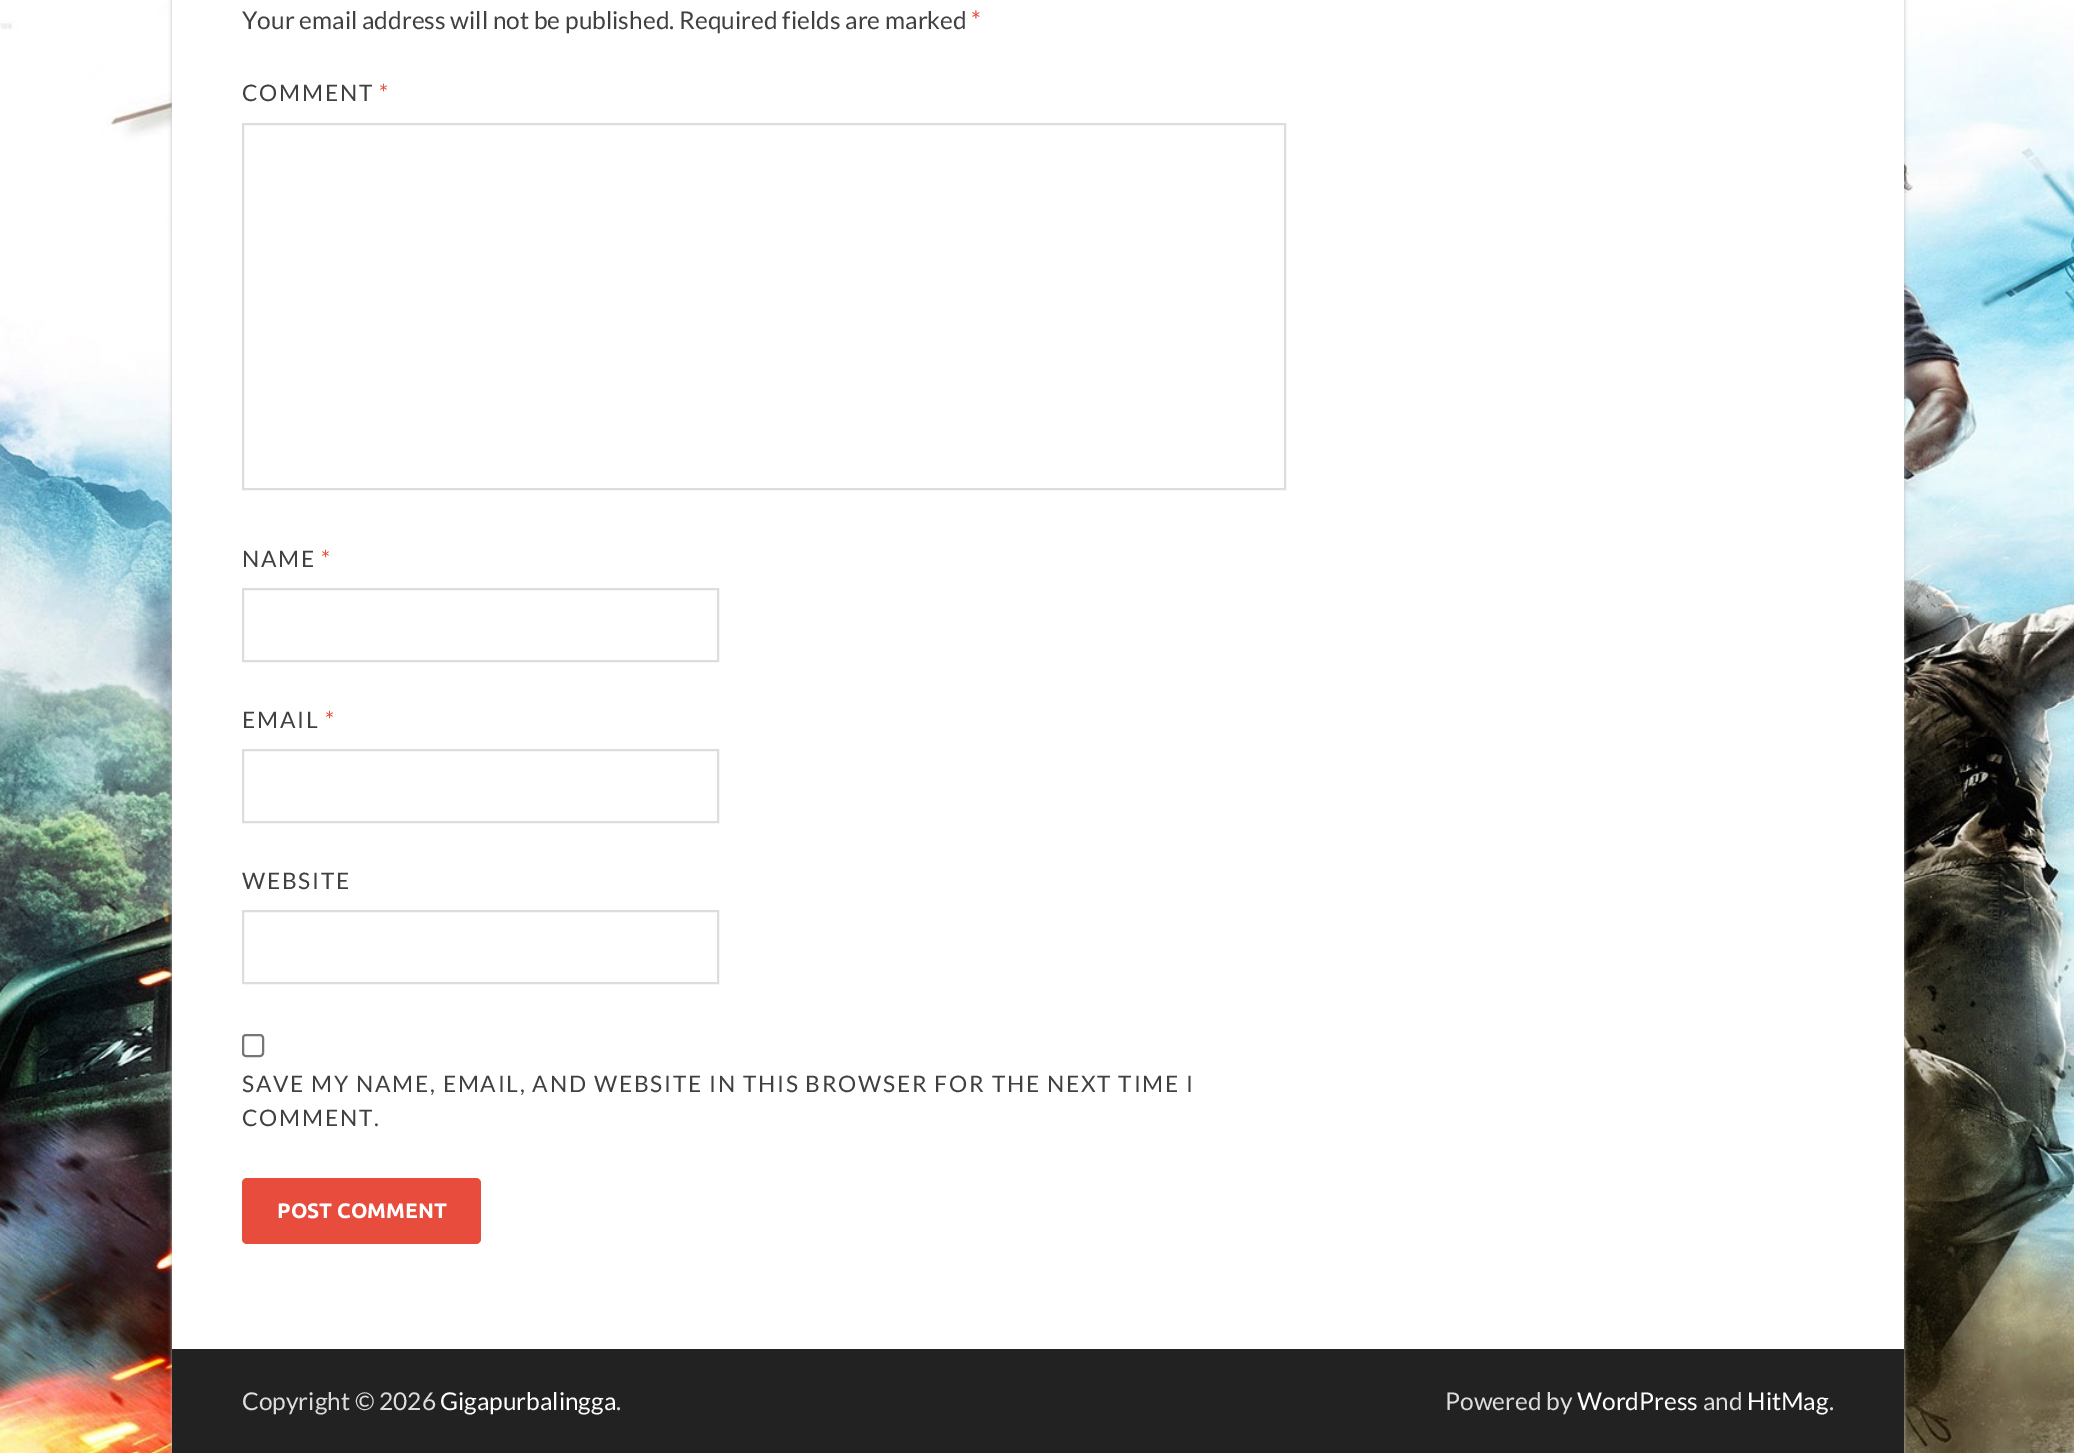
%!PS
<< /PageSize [2074 1453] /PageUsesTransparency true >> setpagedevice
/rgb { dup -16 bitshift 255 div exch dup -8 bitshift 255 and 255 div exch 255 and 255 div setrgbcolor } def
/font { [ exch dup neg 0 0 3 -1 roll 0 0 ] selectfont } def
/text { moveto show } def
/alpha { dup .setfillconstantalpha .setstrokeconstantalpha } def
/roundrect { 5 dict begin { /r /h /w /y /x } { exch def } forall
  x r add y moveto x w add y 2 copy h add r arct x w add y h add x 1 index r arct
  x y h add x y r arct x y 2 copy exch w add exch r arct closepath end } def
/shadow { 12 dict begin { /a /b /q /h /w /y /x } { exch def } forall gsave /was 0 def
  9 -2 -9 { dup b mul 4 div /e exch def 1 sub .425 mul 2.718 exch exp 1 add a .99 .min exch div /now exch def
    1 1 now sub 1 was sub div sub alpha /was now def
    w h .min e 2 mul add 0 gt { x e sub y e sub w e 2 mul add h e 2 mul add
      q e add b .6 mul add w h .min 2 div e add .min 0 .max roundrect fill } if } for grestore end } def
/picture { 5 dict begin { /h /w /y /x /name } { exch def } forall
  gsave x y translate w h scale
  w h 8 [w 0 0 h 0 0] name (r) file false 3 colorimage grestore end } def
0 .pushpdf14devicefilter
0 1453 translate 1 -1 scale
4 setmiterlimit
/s1 { /Lato-Regular 24.5 font 16#404040 rgb } def
/s2 { /Lato-Regular 24.5 font 16#E74C3C rgb } def
/s3 { /Ubuntu-Bold 21 font 16#FFFFFF rgb } def
/s4 { /Lato-Regular 24.5 font 16#DDDDDD rgb } def
/s5 { /Lato-Regular 24.5 font 16#FFFFFF rgb } def
16#FFFFFF rgb
0 0 2074 1453 rectfill
(pic1.raw) 0 0 2074 1453 picture
16#BBBBBB rgb
172 -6 1732 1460 0 2 1 shadow
16#FFFFFF rgb
172 0 1732 1349 rectfill
s1
(Your email address will not be published. Required fields are marked) 242 29 text
s2
(*) 971 29 text
/Lato-Regular 22.75 font
16#404040 rgb
242 101 moveto 1.75 0 (COMMENT) ashow
16#E74C3C rgb
379 101 moveto 1.75 0 (*) ashow
16#DDDDDD rgb
2 setlinewidth
243 124 1042 365 rectstroke
16#404040 rgb
242 567 moveto 1.75 0 (NAME) ashow
16#E74C3C rgb
321 567 moveto 1.75 0 (*) ashow
16#DDDDDD rgb
243 589 475 72 rectstroke
16#404040 rgb
242 728 moveto 1.75 0 (EMAIL) ashow
16#E74C3C rgb
325 728 moveto 1.75 0 (*) ashow
16#DDDDDD rgb
243 750 475 72 rectstroke
16#404040 rgb
242 889 moveto 1.75 0 (WEBSITE) ashow
16#DDDDDD rgb
243 911 475 72 rectstroke
16#767676 rgb
243 1035 20 21 3 roundrect stroke
16#404040 rgb
242 1092 moveto 1.75 0 (SAVE MY NAME, EMAIL, AND WEBSITE IN THIS BROWSER FOR THE NEXT TIME I) ashow
242 1126 moveto 1.75 0 (COMMENT.) ashow
16#E74C3C rgb
242 1178 239 66 5 roundrect fill
s3
(POST COMMENT) 277 1218 text
16#222222 rgb
172 1349 1732 104 rectfill
s4
(Copyright © 2026) 242 1410 text
s5
(Gigapurbalingga) 440 1410 text
s4
(.) 616 1410 text
(Powered by) 1445 1410 text
s5
(WordPress) 1577 1410 text
s4
(and) 1703 1410 text
s5
(HitMag) 1747 1410 text
s4
(.) 1829 1410 text
.poppdf14devicefilter showpage
